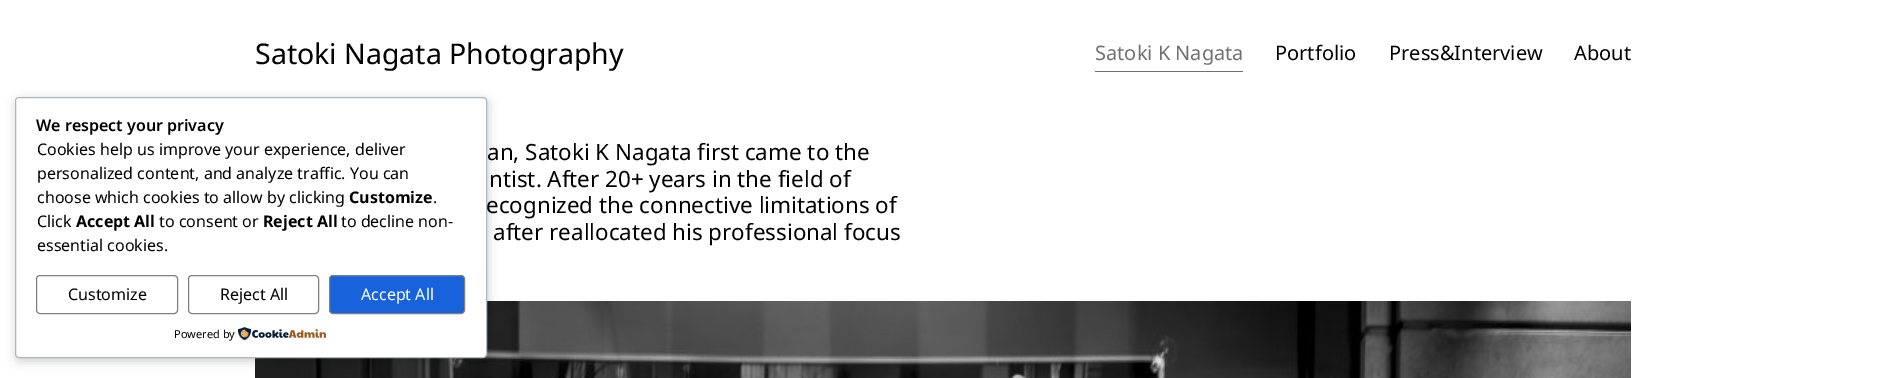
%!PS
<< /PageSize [1901 378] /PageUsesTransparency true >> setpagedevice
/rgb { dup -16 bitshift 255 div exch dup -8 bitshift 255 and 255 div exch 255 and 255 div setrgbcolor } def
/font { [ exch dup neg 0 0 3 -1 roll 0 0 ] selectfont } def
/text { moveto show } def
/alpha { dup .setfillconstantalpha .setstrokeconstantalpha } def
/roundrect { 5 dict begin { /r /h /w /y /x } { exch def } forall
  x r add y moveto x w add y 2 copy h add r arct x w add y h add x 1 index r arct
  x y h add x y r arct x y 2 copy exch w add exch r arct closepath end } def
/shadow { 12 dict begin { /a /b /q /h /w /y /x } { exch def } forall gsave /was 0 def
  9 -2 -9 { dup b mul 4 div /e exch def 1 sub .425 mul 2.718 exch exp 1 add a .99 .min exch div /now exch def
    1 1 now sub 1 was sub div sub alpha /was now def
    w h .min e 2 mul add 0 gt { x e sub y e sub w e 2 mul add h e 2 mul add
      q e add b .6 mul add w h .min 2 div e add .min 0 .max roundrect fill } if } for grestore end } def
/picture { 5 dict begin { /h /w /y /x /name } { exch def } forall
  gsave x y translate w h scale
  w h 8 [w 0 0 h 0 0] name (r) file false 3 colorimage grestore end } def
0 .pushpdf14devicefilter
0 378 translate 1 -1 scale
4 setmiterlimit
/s1 { /NotoSans-SemiBold 16 font 16#000000 rgb } def
/s2 { /NotoSans-Regular 16 font 16#000000 rgb } def
/s3 { /NotoSans-Bold 16 font 16#000000 rgb } def
/s4 { /NotoSans-Regular 16 font 16#FFFFFF rgb } def
/s5 { /NotoSans-Regular 11 font 16#000000 rgb } def
/s6 { /NotoSans-Regular 28.5 font 16#000000 rgb } def
/s7 { /NotoSans-Regular 20 font 16#717171 rgb } def
/s8 { /NotoSans-Regular 20 font 16#000000 rgb } def
/s9 { /NotoSans-Regular 22.4 font 16#000000 rgb } def
16#FFFFFF rgb
0 0 1901 378 rectfill
(pic2.raw) 255 301 1376 77 picture
16#000000 rgb
16 100 472 261 4 5 0.2 shadow
16#FFFFFF rgb
15.5 97.5 471 260 3.5 roundrect gsave fill grestore
16#ABB8C3 rgb
stroke
s1
(We respect your privacy) 36 131 text
s2
(Cookies help us improve your experience, deliver) 37 155 text
(personalized content, and analyze traffic. You can) 37 179 text
(choose which cookies to allow by clicking) 37 203 text
s3
(Customize) 349 203 text
s2
(.) 433 203 text
(Click) 37 227 text
s3
(Accept All) 76 227 text
s2
(to consent or) 159 227 text
s3
(Reject All) 263 227 text
s2
(to decline non-) 341 227 text
(essential cookies.) 37 251 text
16#808080 rgb
36.5 275.5 141 38 3.5 roundrect stroke
s2
(Customize) 68 300 text
16#808080 rgb
188.5 275.5 130 38 3.5 roundrect stroke
s2
(Reject All) 220 300 text
16#1863DC rgb
329.5 275.5 135 38 3.5 roundrect gsave fill grestore
16#808080 rgb
stroke
s4
(Accept All) 361 300 text
s5
(Powered by) 174 338 text
(pic1.raw) 238 327 88 14 picture
s6
(Satoki Nagata Photography) 255 64 text
s7
(Satoki K Nagata) 1095 60 text
1095 71 148 1 rectfill
s8
(Portfolio) 1275 60 text
(Press&Interview) 1389 60 text
(About) 1574 60 text
s9
(an, Satoki K Nagata first came to the) 487 160 text
(ntist. After 20+ years in the field of) 489 187 text
(ecognized the connective limitations of) 486 213 text
(after reallocated his professional focus) 493 240 text
.poppdf14devicefilter showpage
